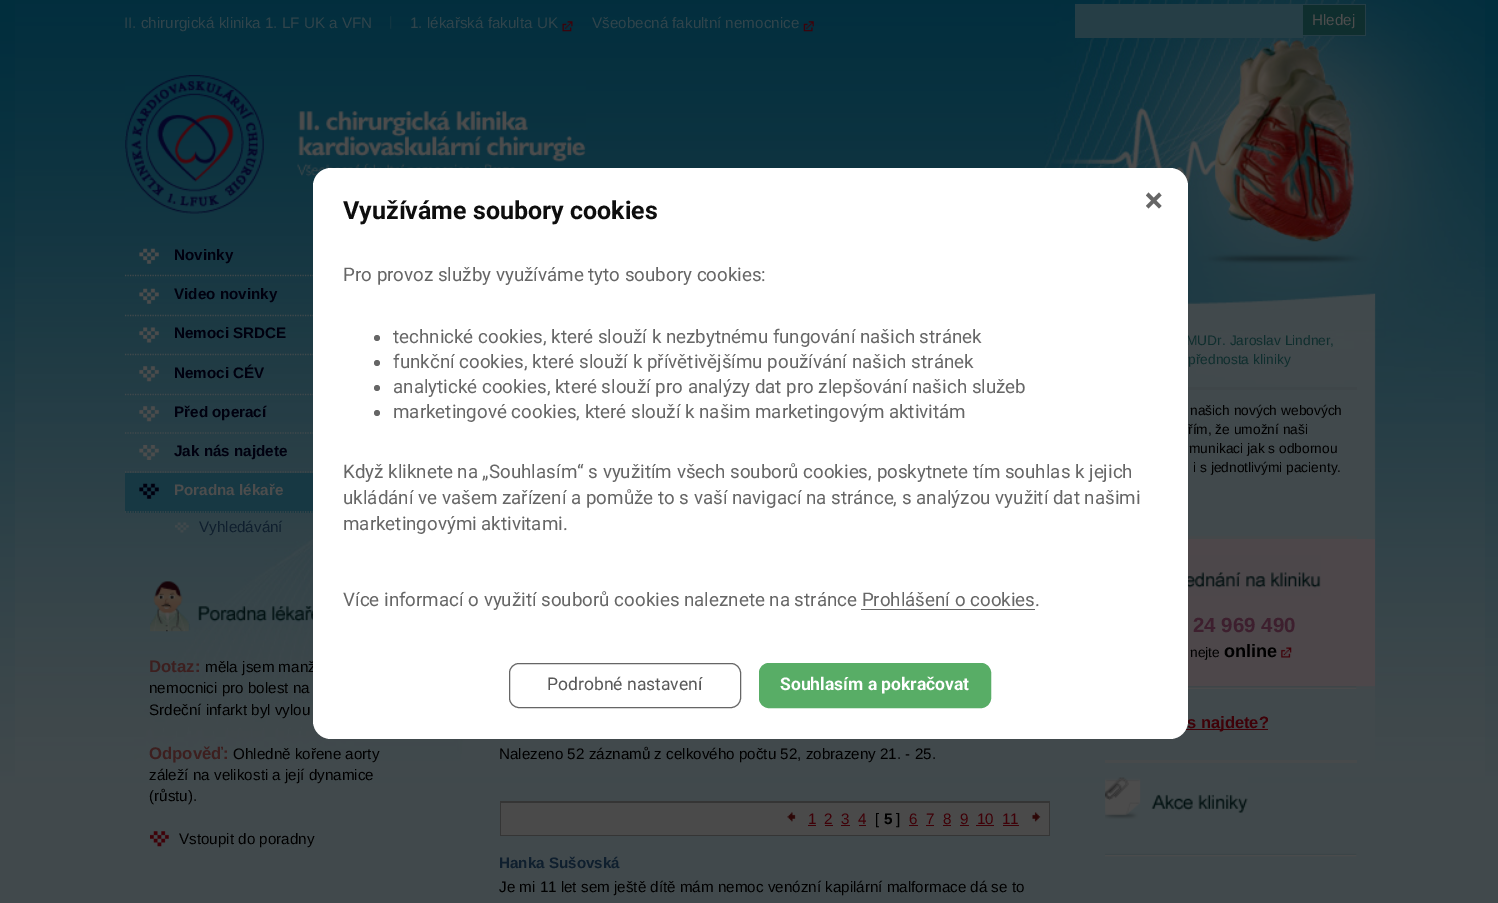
%!PS
<< /PageSize [1498 903] >> setpagedevice
/rgb { dup -16 bitshift 255 div exch dup -8 bitshift 255 and 255 div exch 255 and 255 div setrgbcolor } def
/font { [ exch dup neg 0 0 3 -1 roll 0 0 ] selectfont } def
/text { moveto show } def
/circle { newpath 0 360 arc closepath } def
/roundrect { 5 dict begin { /r /h /w /y /x } { exch def } forall
  x r add y moveto x w add y 2 copy h add r arct x w add y h add x 1 index r arct
  x y h add x y r arct x y 2 copy exch w add exch r arct closepath end } def
/picture { 5 dict begin { /h /w /y /x /name } { exch def } forall
  gsave x y translate w h scale
  w h 8 [w 0 0 h 0 0] name (r) file false 3 colorimage grestore end } def
0 903 translate 1 -1 scale
4 setmiterlimit
/s1 { /LiberationSans-Regular 15.2 font 16#30444B rgb } def
/s2 { /LiberationSans-Regular 15.2 font 16#4D4D4D rgb } def
/s3 { /LiberationSans-Bold 15.2 font 16#00000F rgb } def
/s4 { /LiberationSans-Bold 15.2 font 16#4D4D4D rgb } def
/s5 { /LiberationSans-Regular 15.2 font 16#0F1F2E rgb } def
/s6 { /LiberationSans-Bold 16.75 font 16#3D1F1F rgb } def
/s7 { /LiberationSans-Regular 15.2 font 16#000000 rgb } def
/s8 { /LiberationSans-Regular 13.75 font 16#0F2E2E rgb } def
/s9 { /LiberationSans-Regular 13.75 font 16#000000 rgb } def
/s10 { /LiberationSans-Bold 20.5 font 16#3D1F2E rgb } def
/s11 { /LiberationSans-Bold 18 font 16#000000 rgb } def
/s12 { /LiberationSans-Bold 16.5 font 16#3F0108 rgb } def
/s13 { /LiberationSans-Regular 15.2 font 16#3F0108 rgb } def
/s14 { /LiberationSans-Bold 15.2 font 16#000000 rgb } def
/s15 { /LiberationSans-Bold 15.2 font 16#0F1F2E rgb } def
/s16 { /Roboto-Bold 25 font 16#0E0E0E rgb } def
/s17 { /Roboto-Regular 18.75 font 16#666666 rgb } def
/s18 { /Roboto-Regular 17.5 font 16#585858 rgb } def
/s19 { /Roboto-Bold 17.5 font 16#FFFFFF rgb } def
16#41494C rgb
0 0 1498 903 rectfill
(pic1.raw) 0 0 1498 783 picture
(pic2.raw) 15 0 1470 777 picture
(pic3.raw) 390 16 2 13 picture
s1
(II. chirurgická klinika 1. LF UK a VFN) 124 28 text
(pic4.raw) 562 21 11 11 picture
(1. lékařská fakulta UK) 410 28 text
(pic5.raw) 803 21 11 11 picture
(Všeobecná fakultní nemocnice) 592 28 text
16#263E46 rgb
1075 4 228 34 rectfill
16#0F2E2E rgb
1303 5 62 30 rectfill
16#263E46 rgb
1303 4 63 1 rectfill
1365 4 1 32 rectfill
1303 35 63 1 rectfill
s2
(Hledej) 1312 25 text
(pic6.raw) 125 75 461 139 picture
(pic7.raw) 139 248 20 16 picture
16#41494C rgb
1.2 setlinewidth
[1.25 1.25] 0 setdash
125 275.5 moveto 425 275.5 lineto stroke
s3
(Novinky) 174 260 text
(pic8.raw) 139 288 20 16 picture
16#41494C rgb
125 315.5 moveto 425 315.5 lineto stroke
s3
(Video novinky) 174 299 text
(pic9.raw) 139 327 20 16 picture
16#41494C rgb
125 354.5 moveto 425 354.5 lineto stroke
s3
(Nemoci SRDCE) 174 338 text
(pic10.raw) 139 366 20 16 picture
16#41494C rgb
125 394.5 moveto 425 394.5 lineto stroke
s3
(Nemoci CÉV) 174 378 text
(pic11.raw) 139 406 20 16 picture
16#41494C rgb
125 433 moveto 425 433 lineto stroke
s3
(Před operací) 174 417 text
(pic12.raw) 139 445 20 15 picture
16#41494C rgb
125 472 moveto 425 472 lineto stroke
s3
(Jak nás najdete) 174 456 text
16#173843 rgb
125 473 188 40 rectfill
(pic13.raw) 139 483 20 16 picture
16#41494C rgb
125 512 moveto 425 512 lineto stroke
s4
(Poradna lékaře) 174 495 text
(pic14.raw) 175 522 14 11 picture
s5
(Vyhledávání) 199 532 text
(pic15.raw) 150 581 163 51 picture
s6
(Dotaz:) 149 672 text
s7
(měla jsem manž) 205 672 text
(nemocnici pro bolest na) 149 693 text
(Srdeční infarkt byl vylou) 149 715 text
s6
(Odpověď:) 149 759 text
s7
(Ohledně kořene aorty) 233 759 text
(záleží na velikosti a její dynamice) 149 780 text
(\(růstu\).) 149 801 text
(pic16.raw) 150 831 19 16 picture
(Vstoupit do poradny) 179 844 text
16#41494C rgb
1080 305 1 211 rectfill
(pic17.raw) 1188 237 187 68 picture
16#44484A rgb
1188 536 169 3 rectfill
16#3F4649 rgb
1188 387 169 3 rectfill
s8
(MUDr. Jaroslav Lindner,) 1186 345 text
(přednosta kliniky) 1188 364 text
s9
(našich nových webových) 1190 415 text
(řím, že umožní naši) 1188 434 text
(munikaci jak s odbornou) 1189 453 text
(i s jednotlivými pacienty.) 1193 472 text
16#4D474A rgb
1188 539 187 150 rectfill
(pic18.raw) 1188 686 187 3 picture
(pic19.raw) 1188 555 133 41 picture
s10
(24 969 490) 1193 632 text
s9
(nejte) 1190 657 text
s11
(online) 1224 657 text
(pic20.raw) 1281 647 11 11 picture
16#474A4B rgb
1105 760 252 3 rectfill
16#3F0108 rgb
1185 729 83 1 rectfill
s12
(s najdete?) 1187 728 text
(pic21.raw) 1105 853 252 4 picture
(pic22.raw) 1105 777 143 42 picture
s7
(Nalezeno 52 záznamů z celkového počtu 52, zobrazeny 21. - 25.) 499 759 text
16#353535 rgb
500 801 550 35 rectfill
16#4A4A4A rgb
501 803 548 32 rectfill
(pic23.raw) 787 812 9 10 picture
s13
(1) 808 824 text
808 825 8 1 rectfill
(2) 824 824 text
825 825 8 1 rectfill
(3) 841 824 text
841 825 9 1 rectfill
(4) 858 824 text
859 825 7 1 rectfill
s7
([) 875 824 text
s14
(5) 884 824 text
s7
(]) 896 824 text
s13
(6) 909 824 text
909 825 9 1 rectfill
(7) 926 824 text
926 825 8 1 rectfill
(8) 943 824 text
943 825 8 1 rectfill
(9) 960 824 text
960 825 9 1 rectfill
(10) 977 824 text
976 825 18 1 rectfill
(11) 1002 824 text
1003 825 16 1 rectfill
(pic24.raw) 1032 812 9 10 picture
s15
(Hanka Sušovská) 499 868 text
s7
(Je mi 11 let sem ještě dítě mám nemoc venózní kapilární malformace dá se to) 499 892 text
16#FFFFFF rgb
313 168 875 571 18 roundrect fill
s16
(Využíváme soubory cookies) 343 219 text
16#666666 rgb
1159 192.5 moveto 1161.5 195.5 lineto 1148.5 208.5 lineto 1146 206 lineto closepath fill
1146 195.5 moveto 1148.5 192.5 lineto 1161.5 206 lineto 1159 208.5 lineto closepath fill
s17
(Pro provoz služby využíváme tyto soubory cookies:) 343 281 text
377 338 3 circle fill
(technické cookies, které slouží k nezbytnému fungování našich stránek) 393 343 text
377 363 3 circle fill
(funkční cookies, které slouží k přívětivějšímu používání našich stránek) 393 368 text
377 388 3 circle fill
(analytické cookies, které slouží pro analýzy dat pro zlepšování našich služeb) 393 393 text
377 413 3 circle fill
(marketingové cookies, které slouží k našim marketingovým aktivitám) 393 418 text
(Když kliknete na „Souhlasím“ s využitím všech souborů cookies, poskytnete tím souhlas k jejich) 343 478 text
(ukládání ve vašem zařízení a pomůže to s vaší navigací na stránce, s analýzou využití dat našimi) 343 504 text
(marketingovými aktivitami.) 343 530 text
(Více informací o využití souborů cookies naleznete na stránce Prohlášení o cookies.) 343 606 text
861 609 174 1 rectfill
1 setlinewidth
[] 0 setdash
509.5 663.5 231 44 9.5 roundrect stroke
s18
(Podrobné nastavení) 547 690 text
16#58AD66 rgb
759.5 663.5 231 44 9.5 roundrect gsave fill grestore
stroke
s19
(Souhlasím a pokračovat) 780 690 text
showpage
